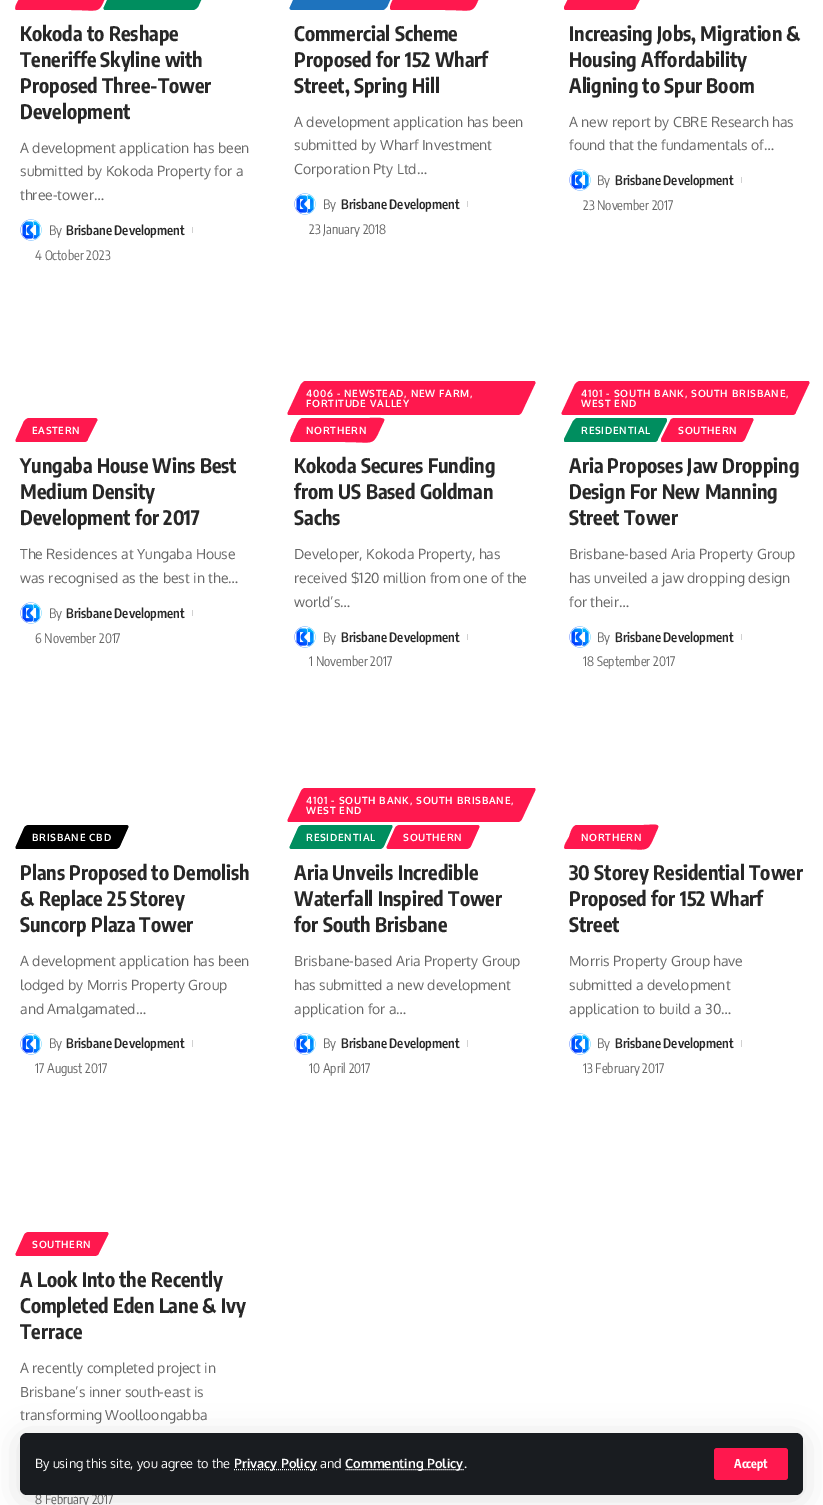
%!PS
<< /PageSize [823 1505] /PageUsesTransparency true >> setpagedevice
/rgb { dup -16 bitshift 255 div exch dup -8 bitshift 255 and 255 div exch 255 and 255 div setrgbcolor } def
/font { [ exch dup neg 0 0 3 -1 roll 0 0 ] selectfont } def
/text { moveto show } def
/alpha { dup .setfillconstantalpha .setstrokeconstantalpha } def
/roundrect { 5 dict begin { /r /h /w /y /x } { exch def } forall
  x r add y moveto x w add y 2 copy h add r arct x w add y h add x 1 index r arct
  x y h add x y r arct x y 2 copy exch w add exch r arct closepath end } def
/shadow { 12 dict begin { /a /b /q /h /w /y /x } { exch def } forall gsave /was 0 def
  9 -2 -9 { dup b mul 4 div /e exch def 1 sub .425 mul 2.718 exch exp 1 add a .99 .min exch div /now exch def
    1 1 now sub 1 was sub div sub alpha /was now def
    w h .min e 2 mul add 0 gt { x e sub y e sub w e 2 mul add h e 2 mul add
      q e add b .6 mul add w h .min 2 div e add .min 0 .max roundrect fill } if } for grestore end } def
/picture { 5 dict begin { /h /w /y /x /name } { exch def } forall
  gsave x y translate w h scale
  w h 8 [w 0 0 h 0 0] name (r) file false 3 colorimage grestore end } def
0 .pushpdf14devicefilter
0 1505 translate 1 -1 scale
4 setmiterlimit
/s1 { /EncodeSansCondensed-Bold 20 font 16#282828 rgb } def
/s2 { /Oxygen-Regular 14 font 16#666666 rgb } def
/s3 { /EncodeSansCondensed-Regular 13 font 16#666666 rgb } def
/s4 { /EncodeSansCondensed-SemiBold 13 font 16#282828 rgb } def
/s5 { /Oxygen-Regular 12.75 font 16#FFFFFF rgb } def
/s6 { /Oxygen-Bold 12.75 font 16#FFFFFF rgb } def
/s7 { /EncodeSansCondensed-Bold 12 font 16#FFFFFF rgb } def
16#FFFFFF rgb
0 0 823 1505 rectfill
16#FF184E rgb
29 -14 moveto 94 -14 lineto 103 -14 111 -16 109 -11 curveto 97 16 104 10 70 10 curveto 17 10 lineto 12 10 19 -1 20 -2 curveto 21 -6 24 -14 29 -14 curveto closepath fill
16#008E5F rgb
117 -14 moveto 205 -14 lineto 206 -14 207 -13 206 -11 curveto 198 7 lineto 197 8 195 10 193 10 curveto 105 10 lineto 104 10 103 8 104 7 curveto 112 -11 lineto 113 -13 115 -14 117 -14 curveto closepath fill
s1
(Kokoda to Reshape) 20 41 text
(Teneriffe Skyline with) 20 67 text
(Proposed Three-Tower) 20 93 text
(Development) 20 119 text
s2
(A development application has been) 20 153 text
(submitted by Kokoda Property for a) 20 176 text
(three-tower…) 20 200 text
(pic1.raw) 20 219 22 22 picture
s3
(By) 49 235 text
s4
(Brisbane Development) 66 235 text
16#D1D1D1 rgb
192 227 1 6 rectfill
s3
(4 October 2023) 35 260 text
16#1E73BE rgb
303 -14 moveto 394 -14 lineto 395 -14 396 -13 395 -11 curveto 387 7 lineto 386 8 384 10 383 10 curveto 292 10 lineto 290 10 289 8 290 7 curveto 298 -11 lineto 299 -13 301 -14 303 -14 curveto closepath fill
16#FF184E rgb
403 -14 moveto 469 -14 lineto 477 -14 486 -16 483 -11 curveto 471 16 478 10 444 10 curveto 392 10 lineto 387 10 393 -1 394 -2 curveto 396 -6 398 -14 403 -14 curveto closepath fill
s1
(Commercial Scheme) 294 41 text
(Proposed for 152 Wharf) 294 67 text
(Street, Spring Hill) 294 93 text
s2
(A development application has been) 294 127 text
(submitted by Wharf Investment) 294 150 text
(Corporation Pty Ltd…) 294 174 text
(pic1.raw) 294 193 22 22 picture
s3
(By) 323 209 text
s4
(Brisbane Development) 341 209 text
16#D1D1D1 rgb
467 201 1 6 rectfill
s3
(23 January 2018) 309 234 text
16#FF184E rgb
577 -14 moveto 643 -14 lineto 645 -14 645 -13 645 -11 curveto 636 7 lineto 636 8 634 10 632 10 curveto 566 10 lineto 564 10 564 8 564 7 curveto 573 -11 lineto 574 -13 576 -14 577 -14 curveto closepath fill
s1
(Increasing Jobs, Migration &) 569 41 text
(Housing Affordability) 569 67 text
(Aligning to Spur Boom) 569 93 text
s2
(A new report by CBRE Research has) 569 127 text
(found that the fundamentals of…) 569 150 text
(pic1.raw) 569 169 22 22 picture
s3
(By) 597 185 text
s4
(Brisbane Development) 615 185 text
16#D1D1D1 rgb
741 177 1 6 rectfill
s3
(23 November 2017) 583 210 text
16#FF184E rgb
29 418 moveto 95 418 lineto 97 418 98 420 97 421 curveto 88 439 lineto 88 441 86 442 84 442 curveto 17 442 lineto 16 442 15 441 16 439 curveto 24 421 lineto 25 420 27 418 29 418 curveto closepath fill
/Oxygen-Bold 10 font
16#FFFFFF rgb
32 434 moveto 0.7 0 (EASTERN) ashow
s1
(Yungaba House Wins Best) 20 473 text
(Medium Density) 20 499 text
(Development for 2017) 20 525 text
s2
(The Residences at Yungaba House) 20 559 text
(was recognised as the best in the…) 20 583 text
(pic1.raw) 20 602 22 22 picture
s3
(By) 49 618 text
s4
(Brisbane Development) 66 618 text
16#D1D1D1 rgb
192 610 1 6 rectfill
s3
(6 November 2017) 35 643 text
16#FF184E rgb
305 381 moveto 534 381 lineto 535 381 536 383 535 384 curveto 522 412 lineto 521 414 519 415 518 415 curveto 289 415 lineto 288 415 287 414 288 412 curveto 301 384 lineto 302 383 304 381 305 381 curveto closepath fill
/Oxygen-Bold 10 font
16#FFFFFF rgb
306 397 moveto 0.7 0 (4006 - NEWSTEAD, NEW FARM,) ashow
306 407 moveto 0.7 0 (FORTITUDE VALLEY) ashow
16#FF184E rgb
303 418 moveto 369 418 lineto 378 418 386 417 384 421 curveto 371 448 378 442 344 442 curveto 292 442 lineto 287 442 294 432 294 430 curveto 296 427 298 418 303 418 curveto closepath fill
16#FFFFFF rgb
306 434 moveto 0.7 0 (NORTHERN) ashow
s1
(Kokoda Secures Funding) 294 473 text
(from US Based Goldman) 294 499 text
(Sachs) 294 525 text
s2
(Developer, Kokoda Property, has) 294 559 text
(received $120 million from one of the) 294 583 text
(world’s…) 294 607 text
(pic1.raw) 294 626 22 22 picture
s3
(By) 323 642 text
s4
(Brisbane Development) 341 642 text
16#D1D1D1 rgb
467 634 1 6 rectfill
s3
(1 November 2017) 309 666 text
16#FF184E rgb
580 381 moveto 808 381 lineto 809 381 810 383 809 384 curveto 796 412 lineto 796 414 794 415 792 415 curveto 564 415 lineto 562 415 561 414 562 412 curveto 575 384 lineto 576 383 578 381 580 381 curveto closepath fill
/Oxygen-Bold 10 font
16#FFFFFF rgb
581 397 moveto 0.7 0 (4101 - SOUTH BANK, SOUTH BRISBANE,) ashow
581 407 moveto 0.7 0 (WEST END) ashow
16#008E5F rgb
577 418 moveto 665 418 lineto 667 418 667 420 667 421 curveto 658 439 lineto 658 441 656 442 654 442 curveto 566 442 lineto 564 442 564 441 564 439 curveto 573 421 lineto 574 420 576 418 577 418 curveto closepath fill
16#FFFFFF rgb
581 434 moveto 0.7 0 (RESIDENTIAL) ashow
16#FF184E rgb
674 418 moveto 752 418 lineto 753 418 754 420 753 421 curveto 745 439 lineto 744 441 742 442 741 442 curveto 663 442 lineto 661 442 661 441 661 439 curveto 670 421 lineto 670 420 672 418 674 418 curveto closepath fill
16#FFFFFF rgb
678 434 moveto 0.7 0 (SOUTHERN) ashow
s1
(Aria Proposes Jaw Dropping) 569 473 text
(Design For New Manning) 569 499 text
(Street Tower) 569 525 text
s2
(Brisbane-based Aria Property Group) 569 559 text
(has unveiled a jaw dropping design) 569 583 text
(for their…) 569 607 text
(pic1.raw) 569 626 22 22 picture
s3
(By) 597 642 text
s4
(Brisbane Development) 615 642 text
16#D1D1D1 rgb
741 634 1 6 rectfill
s3
(18 September 2017) 583 666 text
16#000000 rgb
29 825 moveto 126 825 lineto 128 825 129 826 128 828 curveto 120 846 lineto 119 848 117 849 115 849 curveto 17 849 lineto 16 849 15 848 16 846 curveto 24 828 lineto 25 826 27 825 29 825 curveto closepath fill
/Oxygen-Bold 10 font
16#FFFFFF rgb
32 841 moveto 0.7 0 (BRISBANE CBD) ashow
s1
(Plans Proposed to Demolish) 20 880 text
(& Replace 25 Storey) 20 906 text
(Suncorp Plaza Tower) 20 932 text
s2
(A development application has been) 20 966 text
(lodged by Morris Property Group) 20 990 text
(and Amalgamated…) 20 1014 text
(pic1.raw) 20 1033 22 22 picture
s3
(By) 49 1048 text
s4
(Brisbane Development) 66 1048 text
16#D1D1D1 rgb
192 1040 1 7 rectfill
s3
(17 August 2017) 35 1073 text
16#FF184E rgb
305 788 moveto 534 788 lineto 535 788 536 789 535 791 curveto 522 819 lineto 521 821 519 822 518 822 curveto 289 822 lineto 288 822 287 821 288 819 curveto 301 791 lineto 302 789 304 788 305 788 curveto closepath fill
/Oxygen-Bold 10 font
16#FFFFFF rgb
306 804 moveto 0.7 0 (4101 - SOUTH BANK, SOUTH BRISBANE,) ashow
306 814 moveto 0.7 0 (WEST END) ashow
16#008E5F rgb
303 825 moveto 391 825 lineto 392 825 393 826 392 828 curveto 384 846 lineto 383 848 381 849 380 849 curveto 292 849 lineto 290 849 289 848 290 846 curveto 298 828 lineto 299 826 301 825 303 825 curveto closepath fill
16#FFFFFF rgb
306 841 moveto 0.7 0 (RESIDENTIAL) ashow
16#FF184E rgb
400 825 moveto 477 825 lineto 479 825 480 826 479 828 curveto 471 846 lineto 470 848 468 849 466 849 curveto 389 849 lineto 387 849 386 848 387 846 curveto 395 828 lineto 396 826 398 825 400 825 curveto closepath fill
16#FFFFFF rgb
403 841 moveto 0.7 0 (SOUTHERN) ashow
s1
(Aria Unveils Incredible) 294 880 text
(Waterfall Inspired Tower) 294 906 text
(for South Brisbane) 294 932 text
s2
(Brisbane-based Aria Property Group) 294 966 text
(has submitted a new development) 294 990 text
(application for a…) 294 1014 text
(pic1.raw) 294 1033 22 22 picture
s3
(By) 323 1048 text
s4
(Brisbane Development) 341 1048 text
16#D1D1D1 rgb
467 1040 1 7 rectfill
s3
(10 April 2017) 309 1073 text
16#FF184E rgb
577 825 moveto 643 825 lineto 652 825 660 823 658 828 curveto 646 855 652 849 619 849 curveto 566 849 lineto 561 849 568 839 569 837 curveto 570 834 572 825 577 825 curveto closepath fill
/Oxygen-Bold 10 font
16#FFFFFF rgb
581 841 moveto 0.7 0 (NORTHERN) ashow
s1
(30 Storey Residential Tower) 569 880 text
(Proposed for 152 Wharf) 569 906 text
(Street) 569 932 text
s2
(Morris Property Group have) 569 966 text
(submitted a development) 569 990 text
(application to build a 30…) 569 1014 text
(pic1.raw) 569 1033 22 22 picture
s3
(By) 597 1048 text
s4
(Brisbane Development) 615 1048 text
16#D1D1D1 rgb
741 1040 1 7 rectfill
s3
(13 February 2017) 583 1073 text
16#FF184E rgb
29 1232 moveto 106 1232 lineto 108 1232 109 1233 108 1235 curveto 99 1253 lineto 99 1254 97 1256 95 1256 curveto 17 1256 lineto 16 1256 15 1254 16 1253 curveto 24 1235 lineto 25 1233 27 1232 29 1232 curveto closepath fill
/Oxygen-Bold 10 font
16#FFFFFF rgb
32 1248 moveto 0.7 0 (SOUTHERN) ashow
s1
(A Look Into the Recently) 20 1287 text
(Completed Eden Lane & Ivy) 20 1313 text
(Terrace) 20 1339 text
s2
(A recently completed project in) 20 1373 text
(Brisbane’s inner south-east is) 20 1397 text
(transforming Woolloongabba) 20 1420 text
s3
(8 February 2017) 35 1504 text
16#000000 rgb
20 1437 783 62 7 15 0.12 shadow
16#191C20 rgb
20 1433 783 62 7 roundrect fill
s5
(By using this site, you agree to the) 35 1468 text
[1 1] 0 setdash
234 1469.5 moveto 317 1469.5 lineto stroke
s6
(Privacy Policy) 234 1468 text
s5
(and) 320 1468 text
345.5 1469.5 moveto 464 1469.5 lineto stroke
s6
(Commenting Policy) 345 1468 text
s5
(.) 464 1468 text
16#FF184E rgb
714 1448 74 32 3 roundrect fill
s7
(Accept) 734 1468 text
.poppdf14devicefilter showpage
